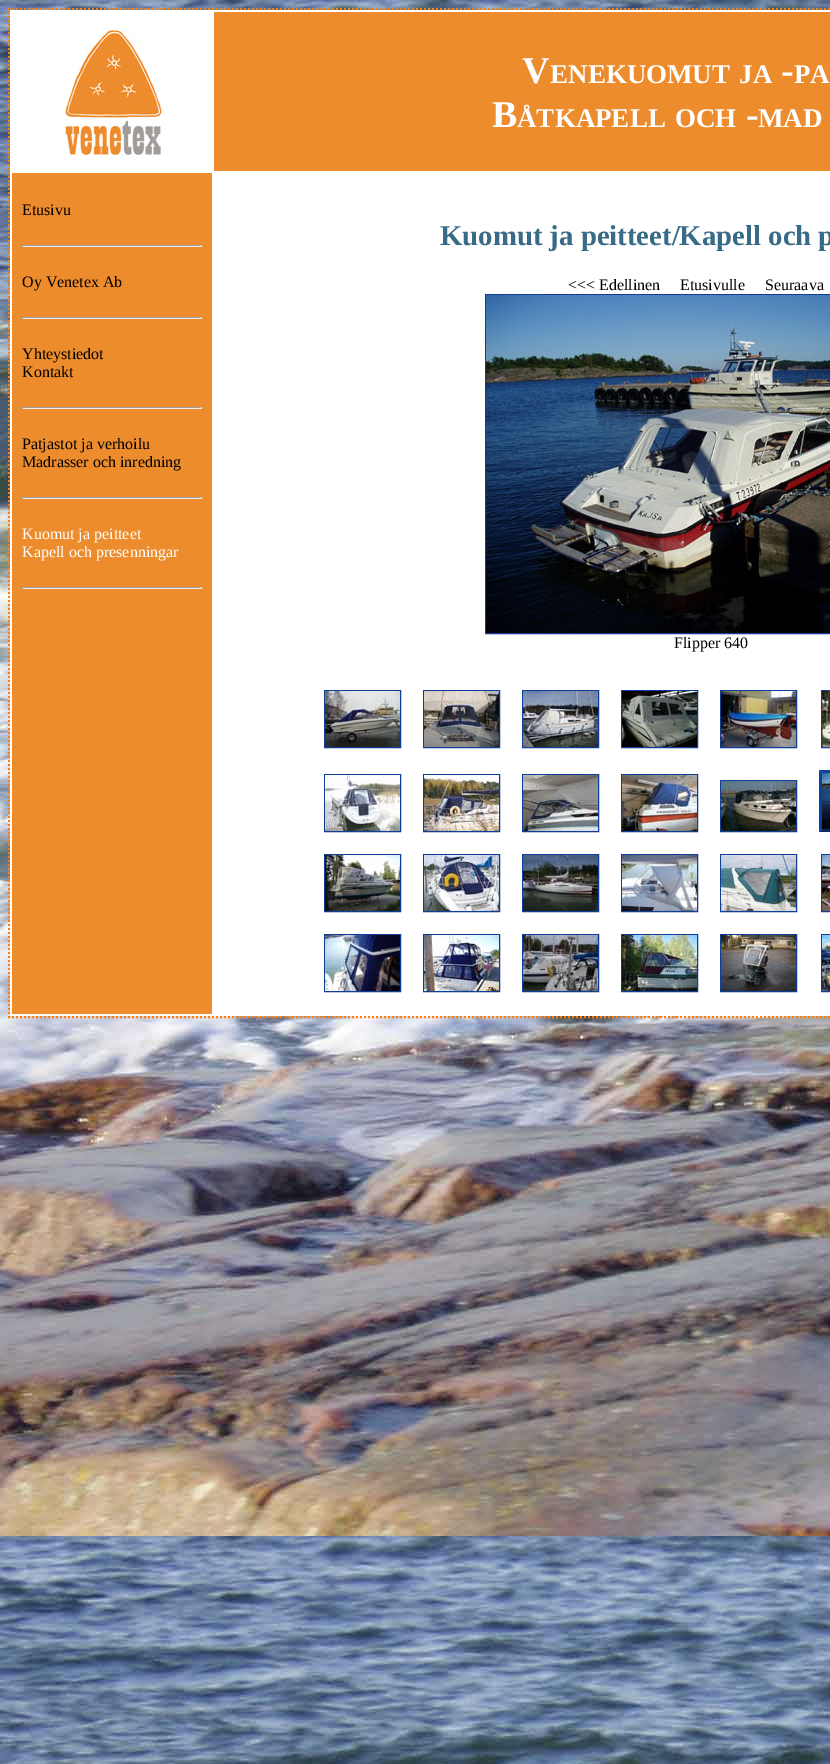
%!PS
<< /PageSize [830 1764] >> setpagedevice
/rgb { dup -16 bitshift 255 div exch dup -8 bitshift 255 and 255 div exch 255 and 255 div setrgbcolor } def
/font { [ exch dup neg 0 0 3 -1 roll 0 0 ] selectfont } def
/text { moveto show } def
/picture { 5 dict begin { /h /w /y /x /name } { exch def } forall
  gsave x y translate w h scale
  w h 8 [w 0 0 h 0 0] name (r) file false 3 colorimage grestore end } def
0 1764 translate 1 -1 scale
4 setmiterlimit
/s1 { /LiberationSerif-Bold 38 font 16#FFFFFF rgb } def
/s2 { /LiberationSerif-Bold 27 font 16#FFFFFF rgb } def
/s3 { /LiberationSerif-Regular 16 font 16#000000 rgb } def
/s4 { /LiberationSerif-Regular 16 font 16#FFFFFF rgb } def
/s5 { /LiberationSerif-Bold 28.75 font 16#386B87 rgb } def
16#FFFFFF rgb
0 0 830 1764 rectfill
(pic1.raw) 0 0 830 1764 picture
16#FF8000 rgb
2 setlinewidth
[2 2] 0 setdash
8 9 moveto 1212 9 lineto stroke
8 1017 moveto 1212 1017 lineto stroke
9 8 moveto 9 1018 lineto stroke
16#FFFFFF rgb
10 10 820 1006 rectfill
(pic2.raw) 62 27 100 128 picture
16#ED8C2D rgb
214 12 616 159 rectfill
s1
(V) 522 83 text
s2
(ENEKUOMUT) 550 83 text
(JA) 739 83 text
s1
(-) 781 83 text
s2
(PA) 794 83 text
s1
(B) 492 127 text
s2
(ÅTKAPELL) 517 127 text
(OCH) 675 127 text
s1
(-) 746 127 text
s2
(MAD) 758 127 text
16#ED8C2D rgb
12 173 200 841 rectfill
s3
(Etusivu) 22 215 text
16#9F9F9F rgb
22 245 180 1 rectfill
16#EEEEEE rgb
201 245 1 2 rectfill
22 246 180 1 rectfill
16#9F9F9F rgb
22 245 1 2 rectfill
s3
(Oy Venetex Ab) 22 287 text
16#9F9F9F rgb
22 317 180 1 rectfill
16#EEEEEE rgb
201 317 1 2 rectfill
22 318 180 1 rectfill
16#9F9F9F rgb
22 317 1 2 rectfill
s3
(Yhteystiedot) 22 359 text
(Kontakt) 22 377 text
16#9F9F9F rgb
22 407 180 1 rectfill
16#EEEEEE rgb
201 407 1 2 rectfill
22 408 180 1 rectfill
16#9F9F9F rgb
22 407 1 2 rectfill
s3
(Patjastot ja verhoilu) 22 449 text
(Madrasser och inredning) 22 467 text
16#9F9F9F rgb
22 497 180 1 rectfill
16#EEEEEE rgb
201 497 1 2 rectfill
22 498 180 1 rectfill
16#9F9F9F rgb
22 497 1 2 rectfill
s4
(Kuomut ja peitteet) 22 539 text
(Kapell och presenningar) 22 557 text
16#9F9F9F rgb
22 587 180 1 rectfill
16#EEEEEE rgb
201 587 1 2 rectfill
22 588 180 1 rectfill
16#9F9F9F rgb
22 587 1 2 rectfill
s5
(Kuomut ja peitteet/Kapell och p) 440 245 text
s3
(<<< Edellinen) 568 290 text
(Etusivulle) 680 290 text
(Seuraava) 765 290 text
16#0F3E98 rgb
1 setlinewidth
[] 0 setdash
485.5 294.5 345 339 rectstroke
(pic3.raw) 486 295 344 338 picture
s3
(Flipper 640) 674 648 text
16#0F3E98 rgb
324.5 690.5 76 57 rectstroke
(pic4.raw) 325 691 75 56 picture
423.5 690.5 76 57 rectstroke
(pic5.raw) 424 691 75 56 picture
522.5 690.5 76 57 rectstroke
(pic6.raw) 523 691 75 56 picture
621.5 690.5 76 57 rectstroke
(pic7.raw) 622 691 75 56 picture
720.5 690.5 76 57 rectstroke
(pic8.raw) 721 691 75 56 picture
821.5 690.5 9 57 rectstroke
(pic9.raw) 822 691 8 56 picture
324.5 774.5 76 57 rectstroke
(pic10.raw) 325 775 75 56 picture
423.5 774.5 76 57 rectstroke
(pic11.raw) 424 775 75 56 picture
522.5 774.5 76 57 rectstroke
(pic12.raw) 523 775 75 56 picture
621.5 774.5 76 57 rectstroke
(pic13.raw) 622 775 75 56 picture
720.5 780.5 76 51 rectstroke
(pic14.raw) 721 781 75 50 picture
819 770 moveto 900 770 lineto 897 773 lineto 822 773 lineto closepath fill
16#0A2965 rgb
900 832 moveto 819 832 lineto 822 829 lineto 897 829 lineto closepath fill
16#0F3E98 rgb
819 832 moveto 819 770 lineto 822 773 lineto 822 829 lineto closepath fill
(pic15.raw) 822 773 8 56 picture
324.5 854.5 76 57 rectstroke
(pic16.raw) 325 855 75 56 picture
423.5 854.5 76 57 rectstroke
(pic17.raw) 424 855 75 56 picture
522.5 854.5 76 57 rectstroke
(pic18.raw) 523 855 75 56 picture
621.5 854.5 76 57 rectstroke
(pic19.raw) 622 855 75 56 picture
720.5 854.5 76 57 rectstroke
(pic20.raw) 721 855 75 56 picture
821.5 854.5 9 57 rectstroke
(pic21.raw) 822 855 8 56 picture
324.5 934.5 76 57 rectstroke
(pic22.raw) 325 935 75 56 picture
423.5 934.5 76 57 rectstroke
(pic23.raw) 424 935 75 56 picture
522.5 934.5 76 57 rectstroke
(pic24.raw) 523 935 75 56 picture
621.5 934.5 76 57 rectstroke
(pic25.raw) 622 935 75 56 picture
720.5 934.5 76 57 rectstroke
(pic26.raw) 721 935 75 56 picture
821.5 934.5 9 57 rectstroke
(pic27.raw) 822 935 8 56 picture
showpage
